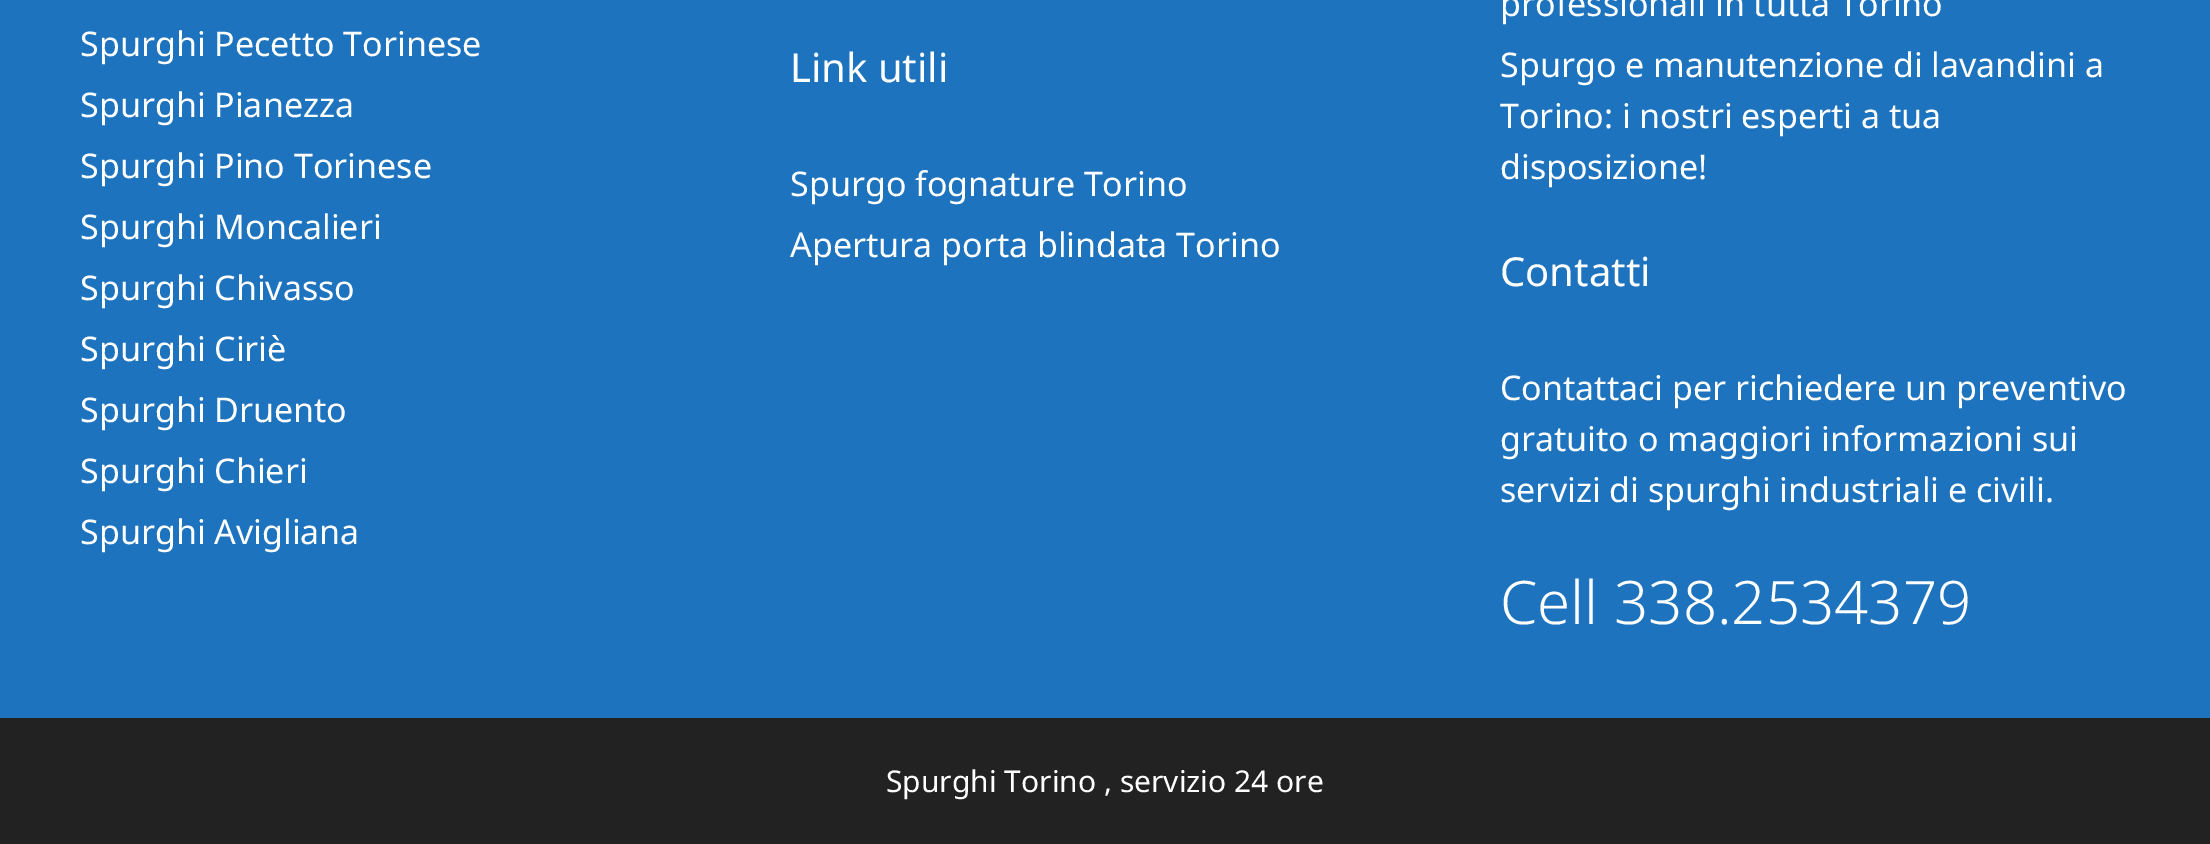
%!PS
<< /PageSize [2210 844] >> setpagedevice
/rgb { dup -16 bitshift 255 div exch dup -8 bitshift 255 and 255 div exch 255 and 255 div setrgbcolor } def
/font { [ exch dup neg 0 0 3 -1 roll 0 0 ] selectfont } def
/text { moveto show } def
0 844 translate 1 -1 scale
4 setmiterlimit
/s1 { /NotoSans-Regular 34 font 16#FFFFFF rgb } def
/s2 { /NotoSans-Regular 40 font 16#FFFFFF rgb } def
/s3 { /NotoSans-Light 60 font 16#FFFFFF rgb } def
/s4 { /NotoSans-Regular 30 font 16#FFFFFF rgb } def
16#1E73BE rgb
0 0 2210 844 rectfill
s1
(Spurghi Pecetto Torinese) 80 56 text
(Spurghi Pianezza) 80 117 text
(Spurghi Pino Torinese) 80 178 text
(Spurghi Moncalieri) 80 239 text
(Spurghi Chivasso) 80 300 text
(Spurghi Ciriè) 80 361 text
(Spurghi Druento) 80 422 text
(Spurghi Chieri) 80 483 text
(Spurghi Avigliana) 80 544 text
s2
(Link utili) 790 82 text
s1
(Spurgo fognature Torino) 790 196 text
(Apertura porta blindata Torino) 790 257 text
(professionali in tutta Torino) 1500 16 text
(Spurgo e manutenzione di lavandini a) 1500 77 text
(Torino: i nostri esperti a tua) 1500 128 text
(disposizione!) 1500 179 text
s2
(Contatti) 1500 286 text
s1
(Contattaci per richiedere un preventivo) 1500 400 text
(gratuito o maggiori informazioni sui) 1500 451 text
(servizi di spurghi industriali e civili.) 1500 502 text
s3
(Cell 338.2534379) 1500 624 text
16#222222 rgb
0 718 2210 126 rectfill
s4
(Spurghi Torino , servizio 24 ore) 886 792 text
showpage
